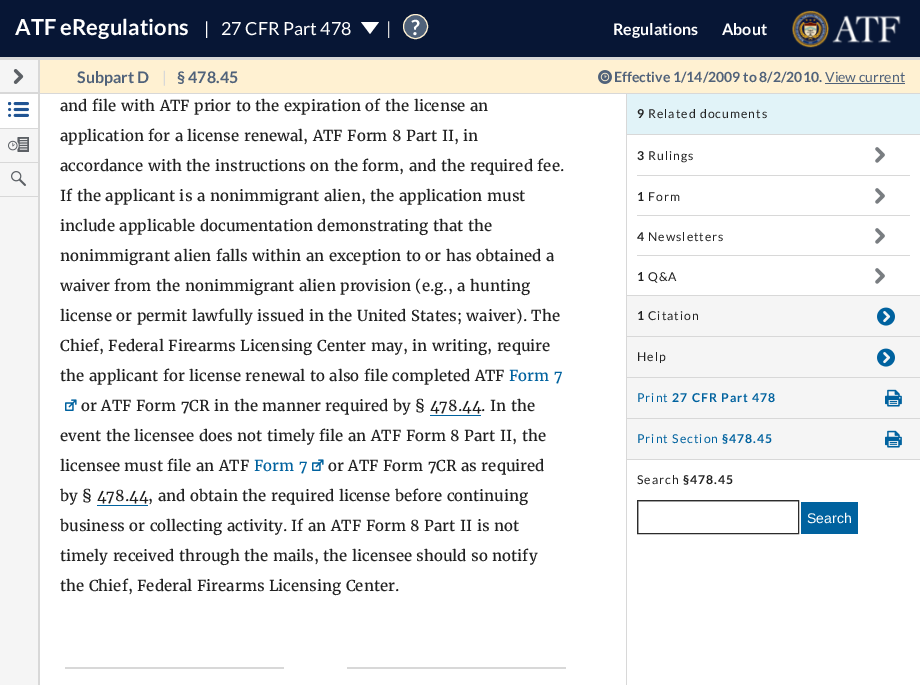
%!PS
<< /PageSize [920 685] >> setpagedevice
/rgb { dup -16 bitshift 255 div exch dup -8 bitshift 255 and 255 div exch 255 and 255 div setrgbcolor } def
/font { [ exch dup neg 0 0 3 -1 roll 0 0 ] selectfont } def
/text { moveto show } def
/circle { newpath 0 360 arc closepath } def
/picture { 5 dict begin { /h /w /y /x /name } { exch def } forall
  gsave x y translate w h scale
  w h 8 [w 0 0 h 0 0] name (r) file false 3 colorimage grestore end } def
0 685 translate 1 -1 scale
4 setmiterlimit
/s1 { /Lato-Bold 22 font 16#FFFFFF rgb } def
/s2 { /Lato-Regular 18 font 16#FFFFFF rgb } def
/s3 { /Lato-Regular 18 font 16#D8D8D8 rgb } def
/s4 { /Lato-Bold 21 font 16#FFFFFF rgb } def
/s5 { /Lato-Bold 16 font 16#FFFFFF rgb } def
/s6 { /Lato-Bold 16 font 16#50627A rgb } def
/s7 { /Lato-Regular 16 font 16#D8D8D8 rgb } def
/s8 { /Lato-Bold 14 font 16#50627A rgb } def
/s9 { /Lato-Regular 14 font 16#50627A rgb } def
/s10 { /Merriweather-Regular 15 font 16#212121 rgb } def
/s11 { /Merriweather-Regular 15 font 16#00629F rgb } def
/s12 { /LiberationSans-Regular 14 font 16#FFFFFF rgb } def
16#FFFFFF rgb
0 0 920 685 rectfill
16#071635 rgb
0 0 920 57 rectfill
16#D8D8D8 rgb
0 57 920 3 rectfill
s1
(ATF eRegulations) 15 35 text
s2
(|) 204 35 text
(27 CFR Part 478) 221 35 text
361 22 moveto 379 22 lineto 370 34 lineto closepath fill
s3
(|) 386 35 text
16#50627A rgb
415.5 26.5 12 circle gsave fill grestore
16#FFF1D2 rgb
stroke
s4
(?) 411 35 text
s5
(Regulations) 613 35 text
(About) 722 35 text
(pic1.raw) 792 10 109 38 picture
16#FFF1D2 rgb
40 60 880 33 rectfill
16#D8D8D8 rgb
40 93 880 1 rectfill
16#F5F5F5 rgb
0 60 38 136 rectfill
16#D8D8D8 rgb
38 60 2 625 rectfill
0 92 38 2 rectfill
(pic2.raw) 13 69 11 15 picture
0 128 38 1 rectfill
16#FFFFFF rgb
0 94 38 34 rectfill
(pic3.raw) 8 102 21 15 picture
16#D8D8D8 rgb
0 162 38 1 rectfill
(pic4.raw) 8 137 21 15 picture
0 196 38 1 rectfill
(pic5.raw) 11 171 15 15 picture
s6
(Subpart D) 77 83 text
s7
(|) 162 83 text
s6
(§ 478.45) 177 83 text
(pic6.raw) 598 70 14 14 picture
s8
(Effective 1/14/2009 to 8/2/2010.) 614 82 text
s9
(View current) 825 82 text
825 83 80 1 rectfill
16#F5F5F5 rgb
0 197 38 488 rectfill
s10
(and file with ATF prior to the expiration of the license an) 60 111 text
(application for a license renewal, ATF Form 8 Part II, in) 60 141 text
(accordance with the instructions on the form, and the required fee.) 60 171 text
(If the applicant is a nonimmigrant alien, the application must) 60 201 text
(include applicable documentation demonstrating that the) 60 231 text
(nonimmigrant alien falls within an exception to or has obtained a) 60 261 text
(waiver from the nonimmigrant alien provision \(e.g., a hunting) 60 291 text
(license or permit lawfully issued in the United States; waiver\). The) 60 321 text
(Chief, Federal Firearms Licensing Center may, in writing, require) 60 351 text
(the applicant for license renewal to also file completed ATF) 60 381 text
s11
(Form 7) 509 381 text
(pic7.raw) 65 399 12 12 picture
s10
(or ATF Form 7CR in the manner required by § 478.44. In the) 81 411 text
16#00629F rgb
430 415 51 1 rectfill
s10
(event the licensee does not timely file an ATF Form 8 Part II, the) 60 441 text
(licensee must file an ATF) 60 471 text
s11
(Form 7) 254 471 text
(pic7.raw) 312 459 12 12 picture
s10
(or ATF Form 7CR as required) 328 471 text
(by § 478.44, and obtain the required license before continuing) 60 501 text
16#00629F rgb
97 505 51 1 rectfill
s10
(business or collecting activity. If an ATF Form 8 Part II is not) 60 531 text
(timely received through the mails, the licensee should so notify) 60 561 text
(the Chief, Federal Firearms Licensing Center.) 60 591 text
16#D8D8D8 rgb
65 667 219 2 rectfill
347 667 219 2 rectfill
626 94 1 591 rectfill
16#E1F3F8 rgb
627 94 293 40 rectfill
16#D8D8D8 rgb
627 134 293 1 rectfill
/Lato-Bold 12.25 font
16#212121 rgb
637 118 moveto 1 0 (9) ashow
/Lato-Regular 12.25 font
648 118 moveto 1 0 (Related documents) ashow
16#D8D8D8 rgb
627 295 293 1 rectfill
/Lato-Bold 12.25 font
16#212121 rgb
637 160 moveto 1 0 (3) ashow
/Lato-Regular 12.25 font
648 160 moveto 1 0 (Rulings) ashow
(pic8.raw) 875 147 10 16 picture
16#D8D8D8 rgb
637 175 273 1 rectfill
/Lato-Bold 12.25 font
16#212121 rgb
637 201 moveto 1 0 (1) ashow
/Lato-Regular 12.25 font
648 201 moveto 1 0 (Form) ashow
(pic8.raw) 875 188 10 16 picture
16#D8D8D8 rgb
637 215 273 1 rectfill
/Lato-Bold 12.25 font
16#212121 rgb
637 241 moveto 1 0 (4) ashow
/Lato-Regular 12.25 font
648 241 moveto 1 0 (Newsletters) ashow
(pic8.raw) 875 228 10 16 picture
16#D8D8D8 rgb
637 255 273 1 rectfill
/Lato-Bold 12.25 font
16#212121 rgb
637 281 moveto 1 0 (1) ashow
/Lato-Regular 12.25 font
648 281 moveto 1 0 (Q&A) ashow
(pic8.raw) 875 268 10 16 picture
16#F5F5F5 rgb
627 296 293 40 rectfill
16#D8D8D8 rgb
627 336 293 1 rectfill
/Lato-Bold 12.25 font
16#212121 rgb
637 320 moveto 1 0 (1) ashow
/Lato-Regular 12.25 font
648 320 moveto 1 0 (Citation) ashow
(pic9.raw) 877 307 18 19 picture
16#F5F5F5 rgb
627 337 293 40 rectfill
16#D8D8D8 rgb
627 377 293 1 rectfill
16#212121 rgb
637 361 moveto 1 0 (Help) ashow
(pic9.raw) 877 348 18 19 picture
16#F5F5F5 rgb
627 378 293 40 rectfill
16#D8D8D8 rgb
627 418 293 1 rectfill
16#00629F rgb
637 402 moveto 1 0 (Print) ashow
/Lato-Bold 12.25 font
672 402 moveto 1 0 (27 CFR Part 478) ashow
(pic10.raw) 885 389 17 18 picture
16#F5F5F5 rgb
627 419 293 40 rectfill
16#D8D8D8 rgb
627 459 293 1 rectfill
/Lato-Regular 12.25 font
16#00629F rgb
637 443 moveto 1 0 (Print Section) ashow
/Lato-Bold 12.25 font
722 443 moveto 1 0 (§478.45) ashow
(pic10.raw) 885 430 17 18 picture
/Lato-Regular 12.25 font
16#212121 rgb
637 484 moveto 1 0 (Search) ashow
/Lato-Bold 12.25 font
683 484 moveto 1 0 (§478.45) ashow
gsave
638 501 160 32 rectclip
16#CCCCCC rgb
539 402 moveto 897 402 lineto 897 632 lineto 539 632 lineto closepath 639 502 moveto 799 502 lineto 799 534 lineto 639 534 lineto closepath eofill
grestore
16#2C2C2C rgb
637.5 500.5 161 33 rectstroke
16#00629F rgb
801 502 57 32 rectfill
s12
(Search) 807 523 text
showpage
